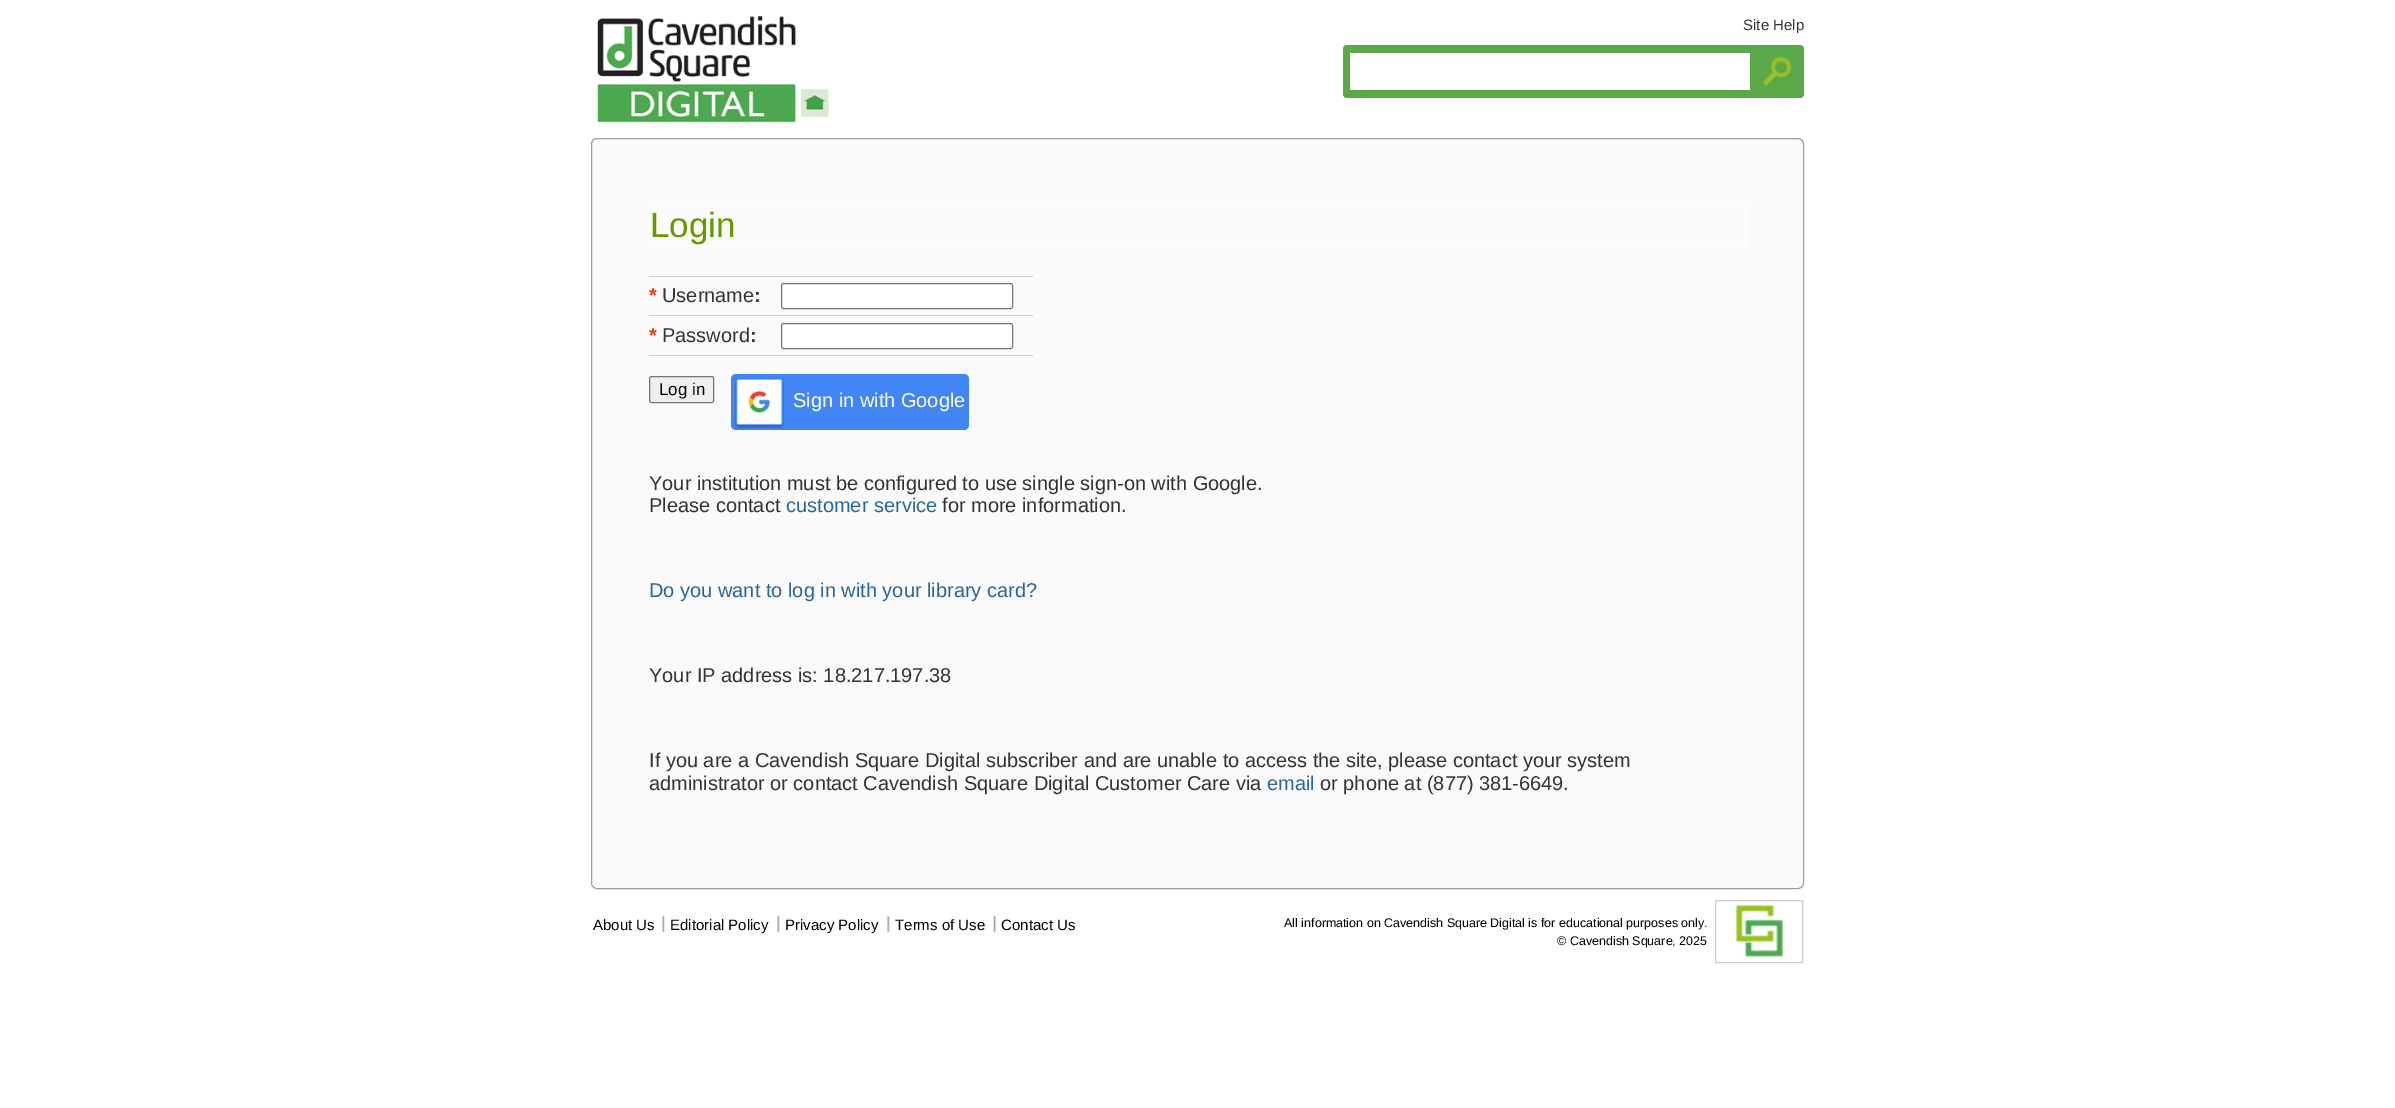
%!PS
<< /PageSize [2395 1108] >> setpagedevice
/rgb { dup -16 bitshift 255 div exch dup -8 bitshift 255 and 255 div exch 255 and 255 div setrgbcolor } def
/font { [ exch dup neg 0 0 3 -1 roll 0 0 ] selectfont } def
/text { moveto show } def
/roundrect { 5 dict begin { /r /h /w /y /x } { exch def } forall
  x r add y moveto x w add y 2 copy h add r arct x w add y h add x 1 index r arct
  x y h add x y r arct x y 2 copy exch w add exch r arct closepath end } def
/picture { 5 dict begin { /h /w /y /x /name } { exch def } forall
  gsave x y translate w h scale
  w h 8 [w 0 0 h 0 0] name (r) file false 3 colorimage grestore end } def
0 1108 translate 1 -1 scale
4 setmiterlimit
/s1 { /LiberationSans-Regular 15 font 16#333333 rgb } def
/s2 { /LiberationSans-Regular 35 font 16#669900 rgb } def
/s3 { /LiberationSans-Bold 20 font 16#FF3300 rgb } def
/s4 { /LiberationSans-Regular 20 font 16#333333 rgb } def
/s5 { /LiberationSans-Bold 20 font 16#333333 rgb } def
/s6 { /LiberationSans-Regular 17 font 16#000000 rgb } def
/s7 { /LiberationSans-Regular 20 font 16#FFFFFF rgb } def
/s8 { /LiberationSans-Regular 20 font 16#2B6796 rgb } def
/s9 { /LiberationSans-Regular 15 font 16#000000 rgb } def
/s10 { /LiberationSans-Regular 12.5 font 16#000000 rgb } def
16#FFFFFF rgb
0 0 2395 1108 rectfill
(pic1.raw) 597 16 232 107 picture
s1
(Site Help) 1743 30 text
16#5AA848 rgb
1343 45 461 53 4 roundrect fill
16#FFFFFF rgb
1350 53 400 37 rectfill
(pic2.raw) 1762 56 30 30 picture
16#FAFAFA rgb
591.5 138.5 1212 750 5.5 roundrect gsave fill grestore
16#A0A0A0 rgb
stroke
16#FFFFFF rgb
649.5 204.5 1096 41 rectstroke
s2
(Login) 650 237 text
16#CCCCCC rgb
649 355 384 1 rectfill
649 276 384 1 rectfill
16#FFFFFF rgb
781.5 283.5 231 25 2 roundrect gsave fill grestore
16#767676 rgb
stroke
s3
(*) 649 302 text
s4
(Username) 662 302 text
s5
(:) 754 302 text
16#CCCCCC rgb
649 315 384 1 rectfill
16#FFFFFF rgb
781.5 323.5 231 25 2 roundrect gsave fill grestore
16#767676 rgb
stroke
s3
(*) 649 342 text
s4
(Password) 662 342 text
s5
(:) 750 342 text
16#EFEFEF rgb
649.5 376.5 64 26 2 roundrect gsave fill grestore
16#767676 rgb
stroke
s6
(Log in) 659 395 text
16#4285F4 rgb
731 374 238 56 5 roundrect fill
(pic3.raw) 734 377 51 52 picture
s7
(Sign in with Google) 793 407 text
s4
(Your institution must be configured to use single sign-on with Google.) 649 490 text
(Please contact) 649 512 text
s8
(customer service) 786 512 text
s4
(for more information.) 942 512 text
s8
(Do you want to log in with your library card?) 649 597 text
s4
(Your IP address is: 18.217.197.38) 649 682 text
(If you are a Cavendish Square Digital subscriber and are unable to access the site, please contact your system) 649 767 text
(administrator or contact Cavendish Square Digital Customer Care via) 649 790 text
s8
(email) 1267 790 text
s4
(or phone at \(877\) 381-6649.) 1320 790 text
s9
(About Us) 593 930 text
(pic4.raw) 662 916 3 17 picture
(Editorial Policy) 670 930 text
(pic4.raw) 777 916 3 17 picture
(Privacy Policy) 785 930 text
(pic4.raw) 887 916 3 17 picture
(Terms of Use) 895 930 text
(pic5.raw) 993 916 4 17 picture
(Contact Us) 1001 930 text
s10
(All information on Cavendish Square Digital is for educational purposes only.) 1284 927 text
(© Cavendish Square, 2025) 1557 945 text
16#CCCCCC rgb
1715.5 900.5 87 62 rectstroke
(pic6.raw) 1735 904 49 54 picture
showpage
